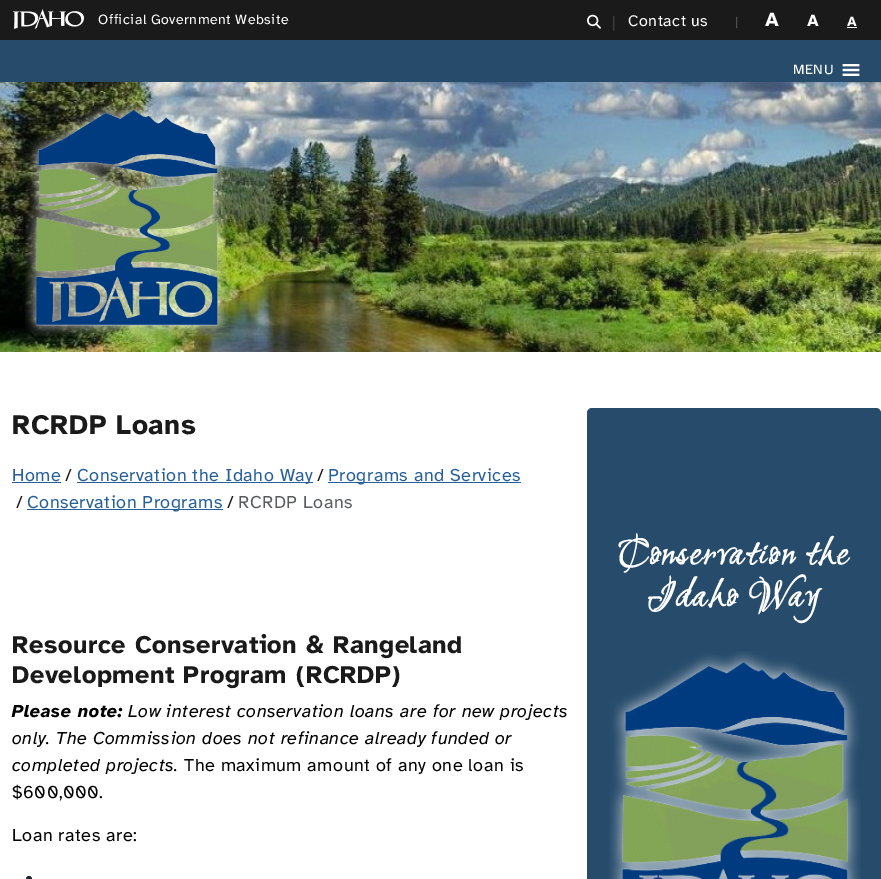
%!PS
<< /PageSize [881 879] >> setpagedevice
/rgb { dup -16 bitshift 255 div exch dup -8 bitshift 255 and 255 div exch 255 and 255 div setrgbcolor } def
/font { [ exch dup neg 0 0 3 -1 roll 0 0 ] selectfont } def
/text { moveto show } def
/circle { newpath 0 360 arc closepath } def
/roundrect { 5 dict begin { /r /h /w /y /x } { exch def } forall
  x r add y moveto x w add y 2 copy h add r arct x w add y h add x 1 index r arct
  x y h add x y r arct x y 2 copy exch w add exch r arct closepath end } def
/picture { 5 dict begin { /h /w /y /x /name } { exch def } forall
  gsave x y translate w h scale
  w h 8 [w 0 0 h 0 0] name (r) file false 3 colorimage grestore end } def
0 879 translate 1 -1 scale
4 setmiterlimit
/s1 { /AtkinsonHyperlegible-Bold 20 font 16#FFFFFF rgb } def
/s2 { /AtkinsonHyperlegible-Bold 17 font 16#FFFFFF rgb } def
/s3 { /AtkinsonHyperlegible-Bold 14 font 16#FFFFFF rgb } def
16#FFFFFF rgb
0 0 881 879 rectfill
16#1A1A1A rgb
0 0 881 40 rectfill
(pic1.raw) 12 9 73 20 picture
/AtkinsonHyperlegible-Regular 14 font
16#FFFFFF rgb
98 24 moveto 0.5 0 (Official Government Website) ashow
(pic2.raw) 587 14 14 15 picture
/LiberationSerif-Bold 16 font
16#4D4D4D rgb
612 27 moveto 0.5 0 (|) ashow
/AtkinsonHyperlegible-Regular 16 font
16#FFFFFF rgb
628 26 moveto 0.5 0 (Contact us) ashow
/AtkinsonHyperlegible-Regular 14 font
16#4D4D4D rgb
735 26 moveto 0.5 0 (|) ashow
s1
(A) 765 26 text
s2
(A) 807 26 text
s3
(A) 847 26 text
847 27 10 1 rectfill
16#264B6B rgb
0 40 881 42 rectfill
/AtkinsonHyperlegible-Regular 14 font
16#FFFFFF rgb
793 74 moveto 0.5 0 (MENU) ashow
(pic3.raw) 842 64 18 12 picture
(pic4.raw) 0 82 881 270 picture
(pic5.raw) 25 101 204 235 picture
/AtkinsonHyperlegible-Bold 28 font
16#1A1A1A rgb
12 434 moveto 0.5 0 (RCRDP Loans) ashow
/AtkinsonHyperlegible-Regular 18 font
16#276099 rgb
12 481 moveto 0.5 0 (Home) ashow
12 482 49 1 rectfill
16#1A1A1A rgb
65 481 moveto 0.5 0 (/) ashow
16#276099 rgb
77 482 236 1 rectfill
77 481 moveto 0.5 0 (Conservation the Idaho Way) ashow
16#1A1A1A rgb
317 481 moveto 0.5 0 (/) ashow
16#276099 rgb
328 482 193 1 rectfill
328 481 moveto 0.5 0 (Programs and Services) ashow
16#1A1A1A rgb
16 508 moveto 0.5 0 (/) ashow
16#276099 rgb
27 509 196 1 rectfill
27 508 moveto 0.5 0 (Conservation Programs) ashow
16#1A1A1A rgb
227 508 moveto 0.5 0 (/) ashow
16#595C5F rgb
238 508 moveto 0.5 0 (RCRDP Loans) ashow
/AtkinsonHyperlegible-Bold 25.25 font
16#1A1A1A rgb
12 653 moveto 0.5 0 (Resource Conservation & Rangeland) ashow
12 683 moveto 0.5 0 (Development Program \(RCRDP\)) ashow
/AtkinsonHyperlegible-BoldItalic 18 font
16#000000 rgb
12 717 moveto 0.5 0 (Please note:) ashow
/AtkinsonHyperlegible-Italic 18 font
128 717 moveto 0.5 0 (Low interest conservation loans are for new projects) ashow
12 744 moveto 0.5 0 (only. The Commission does not refinance already funded or) ashow
12 771 moveto 0.5 0 (completed projects.) ashow
/AtkinsonHyperlegible-Regular 18 font
184 771 moveto 0.5 0 (The maximum amount of any one loan is) ashow
12 798 moveto 0.5 0 ($600,000.) ashow
12 841 moveto 0.5 0 (Loan rates are:) ashow
16#212529 rgb
29 879 3 circle fill
16#264B6B rgb
587 408 294 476 5 roundrect fill
/Ruthie-Bold 42 font
16#FFFFFF rgb
618 564 moveto 2 0 (Conservation the) ashow
647 606 moveto 2 0 (Idaho Way) ashow
(pic6.raw) 609 651 252 228 picture
showpage
